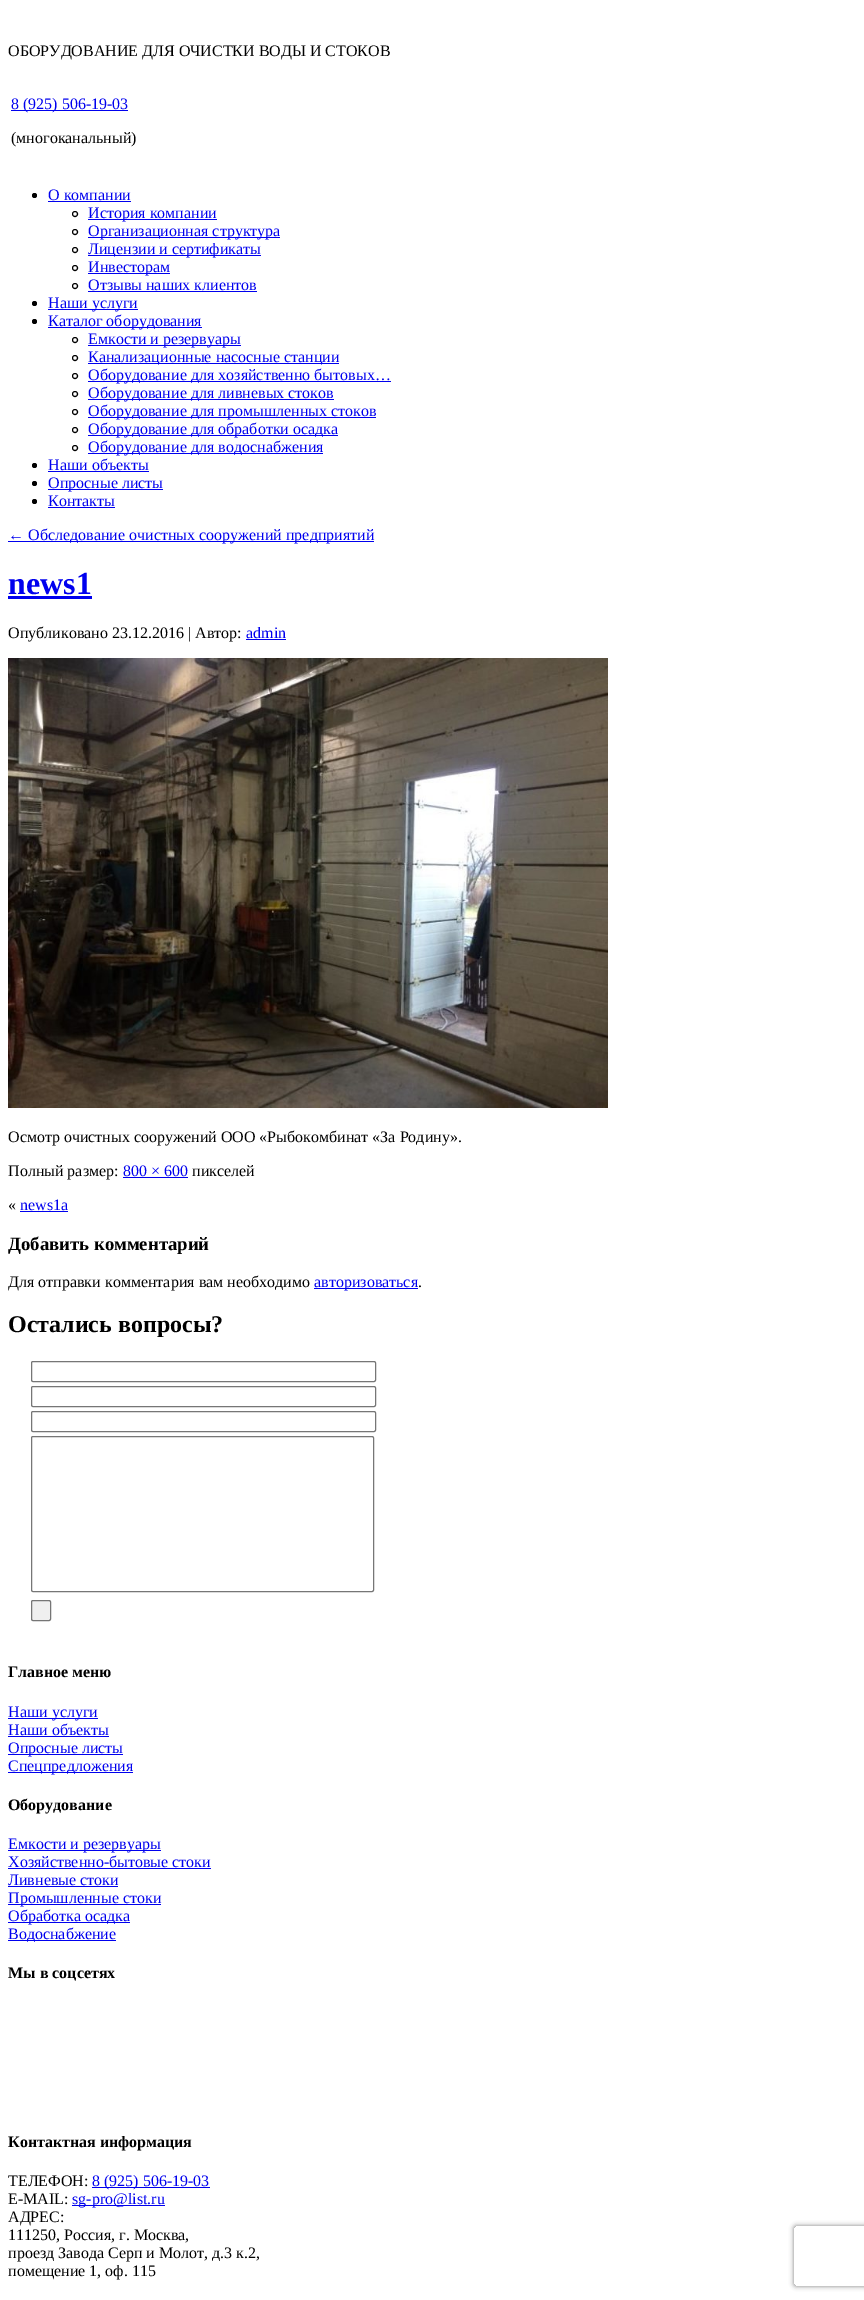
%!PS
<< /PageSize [864 2300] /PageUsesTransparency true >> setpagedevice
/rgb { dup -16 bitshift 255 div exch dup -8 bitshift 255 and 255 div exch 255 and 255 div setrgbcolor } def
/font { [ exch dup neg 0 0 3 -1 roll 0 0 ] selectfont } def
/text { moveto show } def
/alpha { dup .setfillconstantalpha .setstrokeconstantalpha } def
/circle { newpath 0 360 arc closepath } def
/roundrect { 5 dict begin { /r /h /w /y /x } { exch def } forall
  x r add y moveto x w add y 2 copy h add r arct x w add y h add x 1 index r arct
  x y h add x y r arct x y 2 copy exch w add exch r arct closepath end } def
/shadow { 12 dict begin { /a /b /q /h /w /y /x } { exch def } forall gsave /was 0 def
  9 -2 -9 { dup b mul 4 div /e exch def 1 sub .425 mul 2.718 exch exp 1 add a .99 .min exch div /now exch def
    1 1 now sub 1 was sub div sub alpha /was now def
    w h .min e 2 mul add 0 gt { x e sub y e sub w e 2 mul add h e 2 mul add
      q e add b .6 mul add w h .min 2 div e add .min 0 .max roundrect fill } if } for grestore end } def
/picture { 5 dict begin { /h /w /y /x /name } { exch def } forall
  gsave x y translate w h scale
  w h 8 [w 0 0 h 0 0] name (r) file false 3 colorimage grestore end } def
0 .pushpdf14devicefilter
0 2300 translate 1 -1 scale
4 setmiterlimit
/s1 { /LiberationSerif-Regular 16 font 16#000000 rgb } def
/s2 { /LiberationSerif-Regular 16 font 16#0000EE rgb } def
/s3 { /LiberationSerif-Bold 32 font 16#0000EE rgb } def
/s4 { /LiberationSerif-Bold 18.75 font 16#000000 rgb } def
/s5 { /LiberationSerif-Bold 24 font 16#000000 rgb } def
/s6 { /LiberationSerif-Bold 16 font 16#000000 rgb } def
16#FFFFFF rgb
0 0 864 2300 rectfill
s1
(ОБОРУДОВАНИЕ ДЛЯ ОЧИСТКИ ВОДЫ И СТОКОВ) 8 56 text
16#0000EE rgb
11 110 117 1 rectfill
(8 \(925\) 506-19-03) 11 109 text
s1
(\(многоканальный\)) 11 143 text
34.5 195.5 2.5 circle fill
s2
(О компании) 48 200 text
48 201 83 1 rectfill
16#000000 rgb
75 214 2.5 circle stroke
16#0000EE rgb
88 219 129 1 rectfill
(История компании) 88 218 text
16#000000 rgb
75 232 2.5 circle stroke
16#0000EE rgb
88 237 192 1 rectfill
(Организационная структура) 88 236 text
16#000000 rgb
75 250 2.5 circle stroke
16#0000EE rgb
88 255 173 1 rectfill
(Лицензии и сертификаты) 88 254 text
16#000000 rgb
75 268 2.5 circle stroke
16#0000EE rgb
88 273 82 1 rectfill
(Инвесторам) 88 272 text
16#000000 rgb
75 286 2.5 circle stroke
s2
(Отзывы наших клиентов) 88 290 text
88 291 169 1 rectfill
16#000000 rgb
34.5 303.5 2.5 circle fill
16#0000EE rgb
48 309 90 1 rectfill
(Наши услуги) 48 308 text
16#000000 rgb
34.5 321.5 2.5 circle fill
16#0000EE rgb
48 327 154 1 rectfill
(Каталог оборудования) 48 326 text
16#000000 rgb
75 340 2.5 circle stroke
16#0000EE rgb
88 345 153 1 rectfill
(Емкости и резервуары) 88 344 text
16#000000 rgb
75 358 2.5 circle stroke
16#0000EE rgb
88 363 251 1 rectfill
(Канализационные насосные станции) 88 362 text
16#000000 rgb
75 376 2.5 circle stroke
16#0000EE rgb
88 381 303 1 rectfill
(Оборудование для хозяйственно бытовых…) 88 380 text
16#000000 rgb
75 394 2.5 circle stroke
16#0000EE rgb
88 399 246 1 rectfill
(Оборудование для ливневых стоков) 88 398 text
16#000000 rgb
75 412 2.5 circle stroke
16#0000EE rgb
88 417 288 1 rectfill
(Оборудование для промышленных стоков) 88 416 text
16#000000 rgb
75 430 2.5 circle stroke
16#0000EE rgb
88 435 250 1 rectfill
(Оборудование для обработки осадка) 88 434 text
16#000000 rgb
75 448 2.5 circle stroke
16#0000EE rgb
88 453 235 1 rectfill
(Оборудование для водоснабжения) 88 452 text
16#000000 rgb
34.5 465.5 2.5 circle fill
s2
(Наши объекты) 48 470 text
48 471 101 1 rectfill
16#000000 rgb
34.5 483.5 2.5 circle fill
16#0000EE rgb
48 489 115 1 rectfill
(Опросные листы) 48 488 text
16#000000 rgb
34.5 501.5 2.5 circle fill
s2
(Контакты) 48 506 text
48 507 67 1 rectfill
8 541 366 1 rectfill
(← Обследование очистных сооружений предприятий) 8 540 text
s3
(news1) 8 594 text
8 596 84 3 rectfill
s1
(Опубликовано 23.12.2016 | Автор:) 8 638 text
s2
(admin) 246 638 text
246 639 40 1 rectfill
(pic1.raw) 8 658 600 450 picture
s1
(Осмотр очистных сооружений ООО «Рыбокомбинат «За Родину».) 8 1142 text
(Полный размер:) 8 1176 text
s2
(800 × 600) 123 1176 text
123 1177 65 1 rectfill
s1
(пикселей) 192 1176 text
(«) 8 1210 text
s2
(news1a) 20 1210 text
20 1211 48 1 rectfill
s4
(Добавить комментарий) 8 1250 text
s1
(Для отправки комментария вам необходимо) 8 1287 text
16#0000EE rgb
314 1288 104 1 rectfill
(авторизоваться) 314 1287 text
s1
(.) 418 1287 text
s5
(Остались вопросы?) 8 1332 text
16#767676 rgb
31.5 1361.5 344 20 1.5 roundrect stroke
31.5 1386.5 344 20 1.5 roundrect stroke
31.5 1411.5 344 20 1.5 roundrect stroke
31.5 1436.5 342 155 1.5 roundrect stroke
16#EFEFEF rgb
31.5 1600.5 19 20 1.5 roundrect gsave fill grestore
16#767676 rgb
stroke
s6
(Главное меню) 8 1677 text
16#0000EE rgb
8 1718 90 1 rectfill
s2
(Наши услуги) 8 1717 text
(Наши объекты) 8 1735 text
8 1736 101 1 rectfill
8 1754 115 1 rectfill
(Опросные листы) 8 1753 text
8 1772 125 1 rectfill
(Спецпредложения) 8 1771 text
s6
(Оборудование) 8 1810 text
16#0000EE rgb
8 1850 153 1 rectfill
s2
(Емкости и резервуары) 8 1849 text
(Хозяйственно-бытовые стоки) 8 1867 text
8 1868 203 1 rectfill
(Ливневые стоки) 8 1885 text
8 1886 110 1 rectfill
8 1904 153 1 rectfill
(Промышленные стоки) 8 1903 text
8 1922 122 1 rectfill
(Обработка осадка) 8 1921 text
8 1940 108 1 rectfill
(Водоснабжение) 8 1939 text
s6
(Мы в соцсетях) 8 1978 text
(Контактная информация) 8 2147 text
s1
(ТЕЛЕФОН:) 8 2186 text
16#0000EE rgb
92 2187 118 1 rectfill
(8 \(925\) 506-19-03) 92 2186 text
s1
(E-MAIL:) 8 2204 text
16#0000EE rgb
72 2205 93 1 rectfill
(sg-pro@list.ru) 72 2204 text
s1
(АДРЕС:) 8 2222 text
(111250, Россия, г. Москва,) 8 2240 text
(проезд Завода Серп и Молот, д.3 к.2,) 8 2258 text
(помещение 1, оф. 115) 8 2276 text
gsave
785 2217 moveto 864 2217 lineto 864 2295 lineto 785 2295 lineto closepath 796 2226 moveto 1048 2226 lineto 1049 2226 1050 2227 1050 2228 curveto 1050 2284 lineto 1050 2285 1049 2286 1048 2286 curveto 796 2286 lineto 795 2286 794 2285 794 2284 curveto 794 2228 lineto 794 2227 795 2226 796 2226 curveto closepath eoclip newpath
16#808080 rgb
794 2226 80 60 2 2.5 1 shadow
grestore
.poppdf14devicefilter showpage
